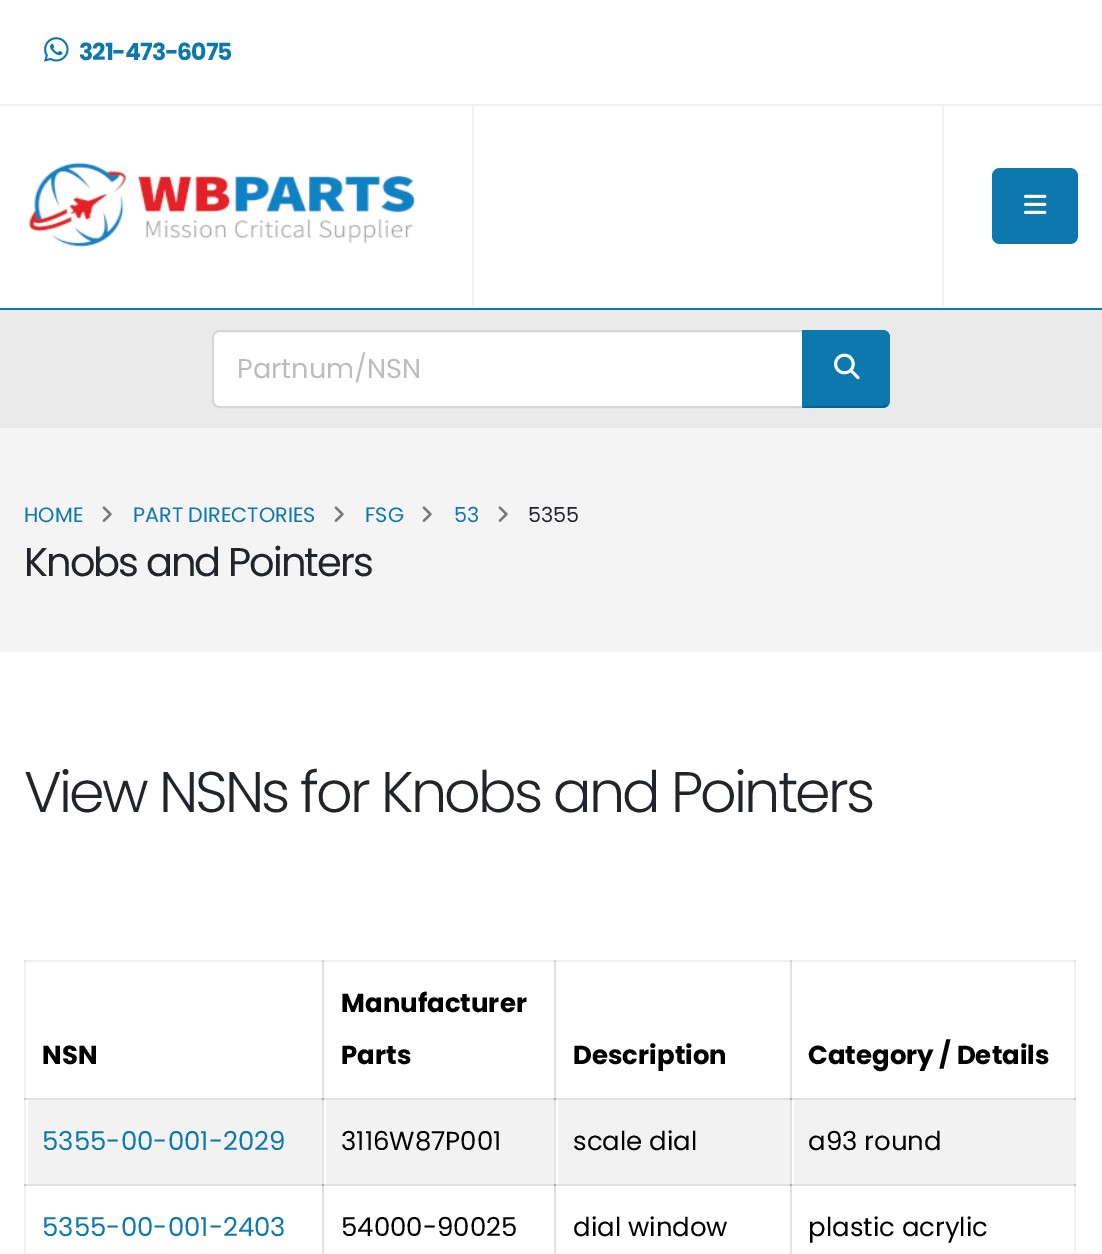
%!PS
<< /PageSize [1102 1254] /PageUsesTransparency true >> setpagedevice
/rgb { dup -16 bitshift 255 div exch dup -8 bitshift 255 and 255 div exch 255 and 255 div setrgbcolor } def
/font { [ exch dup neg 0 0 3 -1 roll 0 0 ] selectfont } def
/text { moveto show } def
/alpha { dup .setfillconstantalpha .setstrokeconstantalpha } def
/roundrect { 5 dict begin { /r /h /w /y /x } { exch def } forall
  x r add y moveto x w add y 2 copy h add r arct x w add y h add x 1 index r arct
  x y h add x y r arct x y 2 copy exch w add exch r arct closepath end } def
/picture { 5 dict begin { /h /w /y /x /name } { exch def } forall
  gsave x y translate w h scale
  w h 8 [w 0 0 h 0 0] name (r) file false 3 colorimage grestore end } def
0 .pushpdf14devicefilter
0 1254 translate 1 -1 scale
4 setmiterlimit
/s1 { /Poppins-Regular 27.25 font 16#BDBDBD rgb } def
/s2 { /Poppins-Regular 20.75 font 16#0C78AE rgb } def
/s3 { /Poppins-Regular 20.75 font 16#212529 rgb } def
/s4 { /Poppins-Bold 26 font 16#000000 rgb } def
/s5 { /Poppins-Regular 26 font 16#0C78AE rgb } def
/s6 { /Poppins-Regular 26 font 16#000000 rgb } def
16#FFFFFF rgb
0 0 1102 1254 rectfill
16#F0F0F0 rgb
24 960 2 294 rectfill
16#E2E2E2 rgb
322 960 2 294 rectfill
554 960 2 294 rectfill
790 960 2 294 rectfill
16#F0F0F0 rgb
1074 960 2 294 rectfill
0 104 1102 2 rectfill
(pic1.raw) 44 37 25 25 picture
/Poppins-Bold 23.5 font
16#0C78AE rgb
79 60 moveto -1 0 (321-473-6075) ashow
16#F0F0F0 rgb
472 106 2 200 rectfill
(pic2.raw) 29 162 387 85 picture
942 106 2 200 rectfill
16#0C78AE rgb
992 168 86 76 8 roundrect fill
(pic3.raw) 1024 194 23 20 picture
16#EAEAEA rgb
0 310 1102 118 rectfill
16#0C78AE rgb
0 308 1102 2 rectfill
16#FFFFFF rgb
220 332 moveto 802 332 lineto 802 406 lineto 220 406 lineto 216.5 406 214 403.5 214 400 curveto 214 338 lineto 214 334.5 216.5 332 220 332 curveto closepath fill
0.09 alpha
16#000000 rgb
2 setlinewidth
220 331 moveto 803 331 lineto 803 407 lineto 220 407 lineto 216 407 213 404 213 400 curveto 213 338 lineto 213 334 216 331 220 331 curveto closepath stroke
1 alpha
s1
(Partnum/NSN) 237 378 text
16#0C78AE rgb
802 330 moveto 882 330 lineto 886.5 330 890 333.5 890 338 curveto 890 400 lineto 890 404.5 886.5 408 882 408 curveto 802 408 lineto closepath fill
802 330 moveto 804 332 lineto 883 332 lineto 886 334 lineto 888 332 lineto 886 331 884 330 882 330 curveto closepath fill
890 400 moveto 890 338 lineto 890 336 889 334 888 332 curveto 886 334 lineto 887 335 888 336 888 338 curveto 888 400 lineto 888 402 887 403 886 404 curveto 888 406 lineto 889 404 890 402 890 400 curveto closepath fill
16#006699 rgb
882 408 moveto 884 408 886 407 888 406 curveto 886 404 lineto 883 406 lineto 804 406 lineto 802 408 lineto closepath fill
16#0C78AE rgb
802 330 moveto 802 408 lineto 804 406 lineto 804 332 lineto closepath fill
(pic4.raw) 834 353 26 27 picture
16#F4F4F4 rgb
0 428 1102 224 rectfill
s2
(HOME) 24 522 text
(pic5.raw) 102 506 10 16 picture
(PART DIRECTORIES) 133 522 text
(pic5.raw) 334 506 10 16 picture
(FSG) 365 522 text
(pic5.raw) 422 506 10 16 picture
(53) 454 522 text
(pic5.raw) 498 506 10 16 picture
s3
(5355) 528 522 text
/Poppins-Regular 40 font
24 576 moveto -2 0 (Knobs and Pointers) ashow
/Poppins-Light 57.25 font
24 812 moveto -2.85 0 (View NSNs for Knobs and Pointers) ashow
16#F0F0F0 rgb
24 960 1052 2 rectfill
16#E2E2E2 rgb
24 960 2 2 rectfill
16#D4D4D4 rgb
322 960 2 2 rectfill
554 960 2 2 rectfill
790 960 2 2 rectfill
16#E2E2E2 rgb
1074 960 2 2 rectfill
16#DEE2E6 rgb
24 1098 1052 2 rectfill
16#C4C7CB rgb
24 1098 2 2 rectfill
16#ADB0B4 rgb
322 1098 2 2 rectfill
554 1098 2 2 rectfill
790 1098 2 2 rectfill
16#C4C7CB rgb
1074 1098 2 2 rectfill
s4
(NSN) 42 1064 text
(Manufacturer) 341 1012 text
(Parts) 341 1064 text
(Description) 573 1064 text
(Category / Details) 808 1064 text
16#DEE2E6 rgb
24 1184 1052 2 rectfill
16#C4C7CB rgb
24 1184 2 2 rectfill
16#ADB0B4 rgb
322 1184 2 2 rectfill
554 1184 2 2 rectfill
790 1184 2 2 rectfill
16#C4C7CB rgb
1074 1184 2 2 rectfill
16#F2F2F2 rgb
28 1100 294 84 rectfill
s5
(5355-00-001-2029) 42 1150 text
16#F2F2F2 rgb
326 1100 228 84 rectfill
s6
(3116W87P001) 341 1150 text
16#F2F2F2 rgb
558 1100 232 84 rectfill
s6
(scale dial) 573 1150 text
16#F2F2F2 rgb
794 1100 280 84 rectfill
s6
(a93 round) 808 1150 text
s5
(5355-00-001-2403) 42 1236 text
s6
(54000-90025) 341 1236 text
(dial window) 573 1236 text
(plastic acrylic) 808 1236 text
.poppdf14devicefilter showpage
